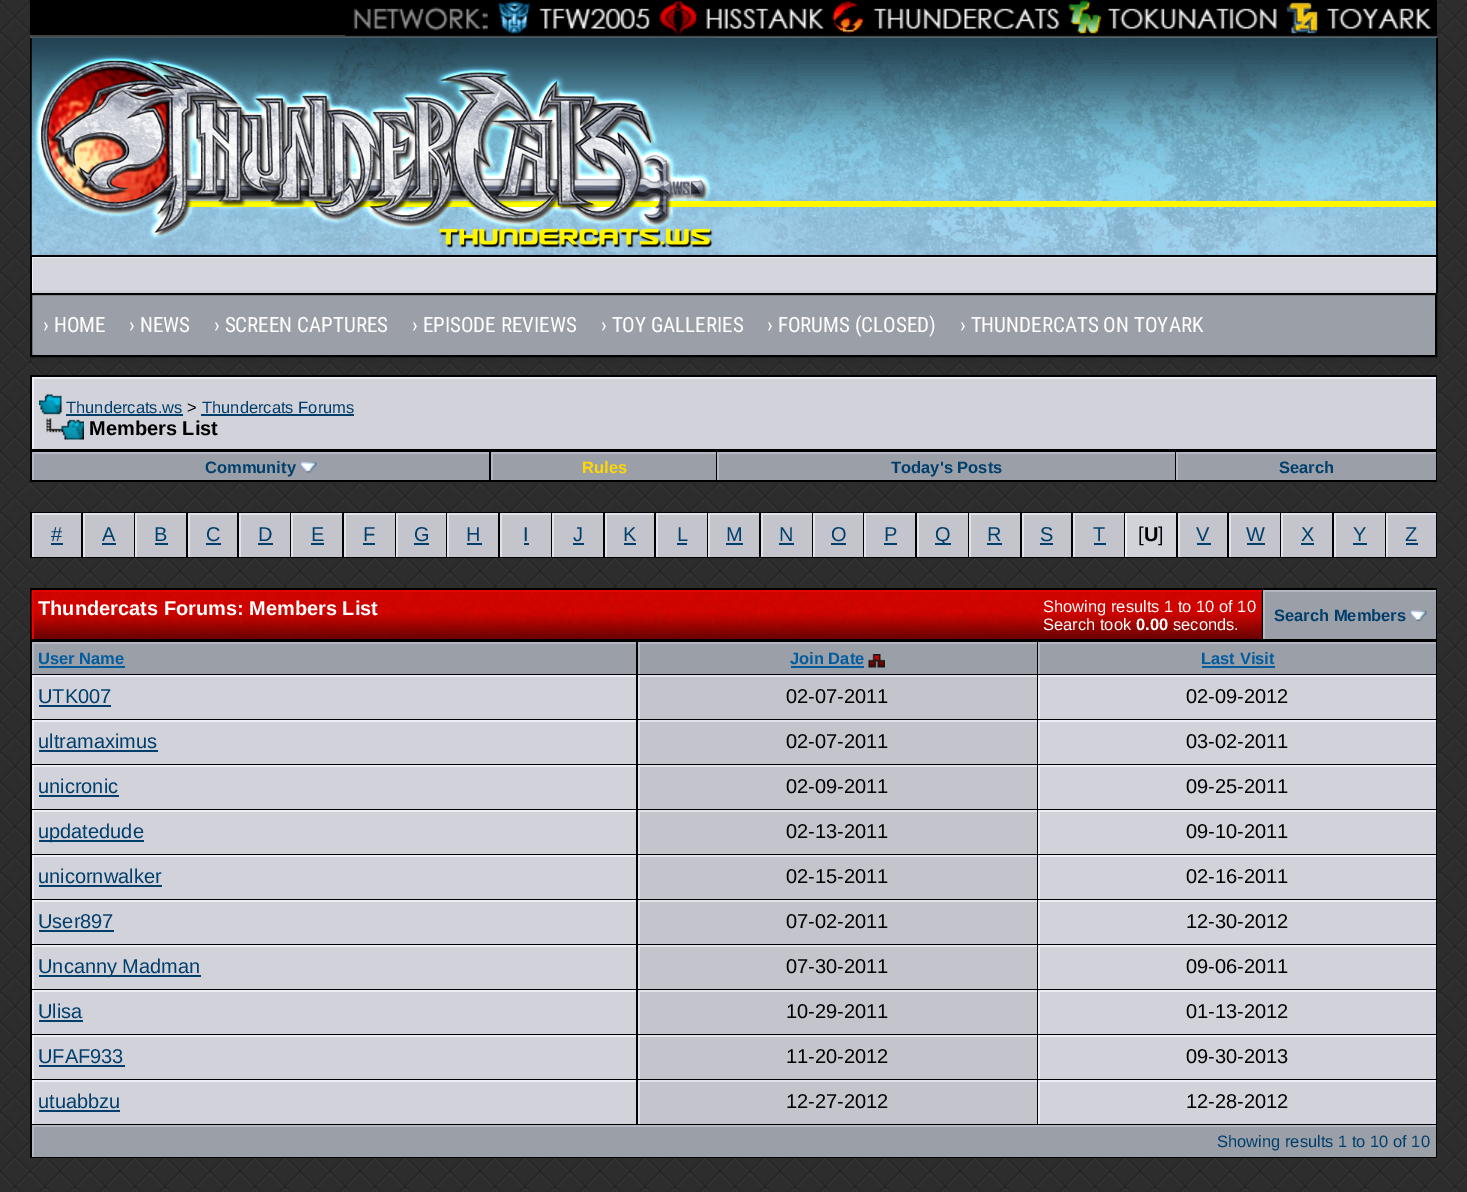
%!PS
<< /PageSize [1467 1192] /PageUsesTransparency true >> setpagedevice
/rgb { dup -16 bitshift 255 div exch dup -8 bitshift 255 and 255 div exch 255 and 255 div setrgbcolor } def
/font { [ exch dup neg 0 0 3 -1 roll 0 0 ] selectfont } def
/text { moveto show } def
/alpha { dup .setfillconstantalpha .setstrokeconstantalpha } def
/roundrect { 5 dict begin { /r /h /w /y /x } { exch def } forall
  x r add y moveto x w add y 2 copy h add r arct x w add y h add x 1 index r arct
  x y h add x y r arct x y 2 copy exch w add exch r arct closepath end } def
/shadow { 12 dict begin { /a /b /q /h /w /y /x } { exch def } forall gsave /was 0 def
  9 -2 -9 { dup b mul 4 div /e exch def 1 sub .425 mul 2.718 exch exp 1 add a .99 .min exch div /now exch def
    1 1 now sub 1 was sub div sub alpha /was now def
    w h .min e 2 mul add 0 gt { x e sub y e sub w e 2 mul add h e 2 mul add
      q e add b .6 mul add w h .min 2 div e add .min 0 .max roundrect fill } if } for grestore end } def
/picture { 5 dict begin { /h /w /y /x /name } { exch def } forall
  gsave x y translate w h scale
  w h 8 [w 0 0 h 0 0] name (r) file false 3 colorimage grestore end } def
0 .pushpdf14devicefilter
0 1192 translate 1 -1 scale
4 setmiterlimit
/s1 { /RobotoCondensed-Regular 21 font 16#FFFFFF rgb } def
/s2 { /LiberationSans-Regular 16.5 font 16#003E6B rgb } def
/s3 { /LiberationSans-Regular 16.5 font 16#000000 rgb } def
/s4 { /LiberationSans-Bold 20 font 16#000000 rgb } def
/s5 { /LiberationSans-Bold 16.5 font 16#003E6B rgb } def
/s6 { /LiberationSans-Bold 16.5 font 16#FFD800 rgb } def
/s7 { /LiberationSans-Regular 20 font 16#003E6B rgb } def
/s8 { /LiberationSans-Regular 20 font 16#000000 rgb } def
/s9 { /LiberationSans-Bold 20 font 16#FFFFFF rgb } def
/s10 { /LiberationSans-Regular 16.5 font 16#FFFFFF rgb } def
/s11 { /LiberationSans-Bold 16.5 font 16#FFFFFF rgb } def
/s12 { /LiberationSans-Bold 16.5 font 16#005C9E rgb } def
16#FFFFFF rgb
0 0 1467 1192 rectfill
(pic1.raw) 0 0 1467 1192 picture
16#000000 rgb
30 0 315 35 rectfill
16#444444 rgb
30 35 1407 3 rectfill
(pic2.raw) 345 0 1092 38 picture
(pic3.raw) 486 1 164 33 picture
(pic4.raw) 649 1 175 34 picture
(pic5.raw) 823 1 237 33 picture
(pic6.raw) 30 37 1407 218 picture
16#000000 rgb
1436 38 2 255 rectfill
30 38 2 255 rectfill
(pic7.raw) 31 37 683 218 picture
gsave
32 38 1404 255 rectclip
16#29292B rgb
38 261 1401 35 0 4 1 shadow
grestore
16#D5D5DE rgb
33 258 1403 35 rectfill
gsave
32 257 1404 36 rectclip
16#EDEDF7 rgb
-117 108 moveto 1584 108 lineto 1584 441 lineto -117 441 lineto closepath 33 258 moveto 1437 258 lineto 1437 294 lineto 33 294 lineto closepath eofill
grestore
16#000000 rgb
32 255 1404 2 rectfill
16#29292B rgb
36 299 1404 61 0 4 1 shadow
16#9B9FA8 rgb
32 296 1403 59 rectfill
16#B2B7C2 rgb
32 295 1404 1 rectfill
16#000000 rgb
2 setlinewidth
31 294 1405 62 rectstroke
s1
(› HOME) 43 332 text
(› NEWS) 129 332 text
(› SCREEN CAPTURES) 214 332 text
(› EPISODE REVIEWS) 412 332 text
(› TOY GALLERIES) 601 332 text
(› FORUMS \(CLOSED\)) 767 332 text
(› THUNDERCATS ON TOYARK) 960 332 text
16#000000 rgb
30 375 1407 107 rectfill
16#D2D2DA rgb
34 379 1402 70 rectfill
16#EDEDF7 rgb
32 377 1404 2 rectfill
32 377 2 72 rectfill
(pic8.raw) 39 394 23 21 picture
s2
(Thundercats.ws) 66 413 text
66 414 117 2 rectfill
s3
(>) 187 413 text
s2
(Thundercats Forums) 202 413 text
201 414 153 2 rectfill
(pic9.raw) 46 418 38 22 picture
s4
(Members List) 89 435 text
16#9B9FA8 rgb
34 454 455 26 rectfill
16#B2B7C2 rgb
32 452 457 2 rectfill
32 452 2 28 rectfill
s5
(Community) 205 473 text
(pic10.raw) 300 462 17 11 picture
16#9B9FA8 rgb
493 454 223 26 rectfill
16#B2B7C2 rgb
491 452 225 2 rectfill
491 452 2 28 rectfill
s6
(Rules) 582 473 text
16#9B9FA8 rgb
719 454 456 26 rectfill
16#B2B7C2 rgb
717 452 458 2 rectfill
717 452 2 28 rectfill
s5
(Today's Posts) 891 473 text
16#9B9FA8 rgb
1178 454 258 26 rectfill
16#B2B7C2 rgb
1176 452 260 2 rectfill
1176 452 2 28 rectfill
s5
(Search) 1279 473 text
16#000000 rgb
30 512 1407 46 rectfill
16#C4C4CC rgb
34 515 47 42 rectfill
16#E1E1EB rgb
32 513 49 2 rectfill
32 513 2 44 rectfill
s7
(#) 51 541 text
51 543 12 2 rectfill
16#C4C4CC rgb
85 515 49 42 rectfill
16#E1E1EB rgb
83 513 51 2 rectfill
83 513 2 44 rectfill
s7
(A) 102 541 text
102 543 14 2 rectfill
16#C4C4CC rgb
137 515 49 42 rectfill
16#E1E1EB rgb
135 513 51 2 rectfill
135 513 2 44 rectfill
s7
(B) 154 541 text
155 543 13 2 rectfill
16#C4C4CC rgb
190 515 47 42 rectfill
16#E1E1EB rgb
188 513 49 2 rectfill
188 513 2 44 rectfill
s7
(C) 206 541 text
206 543 15 2 rectfill
16#C4C4CC rgb
241 515 49 42 rectfill
16#E1E1EB rgb
239 513 51 2 rectfill
239 513 2 44 rectfill
s7
(D) 258 541 text
258 543 15 2 rectfill
16#C4C4CC rgb
293 515 49 42 rectfill
16#E1E1EB rgb
291 513 51 2 rectfill
291 513 2 44 rectfill
s7
(E) 311 541 text
311 543 13 2 rectfill
16#C4C4CC rgb
346 515 49 42 rectfill
16#E1E1EB rgb
344 513 51 2 rectfill
344 513 2 44 rectfill
s7
(F) 363 541 text
363 543 12 2 rectfill
16#C4C4CC rgb
398 515 48 42 rectfill
16#E1E1EB rgb
396 513 50 2 rectfill
396 513 2 44 rectfill
s7
(G) 414 541 text
414 543 15 2 rectfill
16#C4C4CC rgb
449 515 49 42 rectfill
16#E1E1EB rgb
447 513 51 2 rectfill
447 513 2 44 rectfill
s7
(H) 466 541 text
467 543 15 2 rectfill
16#C4C4CC rgb
502 515 49 42 rectfill
16#E1E1EB rgb
500 513 51 2 rectfill
500 513 2 44 rectfill
s7
(I) 523 541 text
524 543 5 2 rectfill
16#C4C4CC rgb
554 515 49 42 rectfill
16#E1E1EB rgb
552 513 51 2 rectfill
552 513 2 44 rectfill
s7
(J) 573 541 text
573 543 11 2 rectfill
16#C4C4CC rgb
607 515 47 42 rectfill
16#E1E1EB rgb
605 513 49 2 rectfill
605 513 2 44 rectfill
s7
(K) 623 541 text
624 543 12 2 rectfill
16#C4C4CC rgb
658 515 49 42 rectfill
16#E1E1EB rgb
656 513 51 2 rectfill
656 513 2 44 rectfill
s7
(L) 677 541 text
677 543 10 2 rectfill
16#C4C4CC rgb
710 515 49 42 rectfill
16#E1E1EB rgb
708 513 51 2 rectfill
708 513 2 44 rectfill
s7
(M) 726 541 text
726 543 17 2 rectfill
16#C4C4CC rgb
763 515 49 42 rectfill
16#E1E1EB rgb
761 513 51 2 rectfill
761 513 2 44 rectfill
s7
(N) 779 541 text
779 543 15 2 rectfill
16#C4C4CC rgb
815 515 48 42 rectfill
16#E1E1EB rgb
813 513 50 2 rectfill
813 513 2 44 rectfill
s7
(O) 831 541 text
831 543 15 2 rectfill
16#C4C4CC rgb
866 515 49 42 rectfill
16#E1E1EB rgb
864 513 51 2 rectfill
864 513 2 44 rectfill
s7
(P) 884 541 text
884 543 13 2 rectfill
16#C4C4CC rgb
919 515 49 42 rectfill
16#E1E1EB rgb
917 513 51 2 rectfill
917 513 2 44 rectfill
16#003E6B rgb
935 543 16 2 rectfill
(Q) 935 541 text
16#C4C4CC rgb
971 515 49 42 rectfill
16#E1E1EB rgb
969 513 51 2 rectfill
969 513 2 44 rectfill
s7
(R) 987 541 text
987 543 15 2 rectfill
16#C4C4CC rgb
1024 515 47 42 rectfill
16#E1E1EB rgb
1022 513 49 2 rectfill
1022 513 2 44 rectfill
s7
(S) 1040 541 text
1040 543 13 2 rectfill
16#C4C4CC rgb
1075 515 49 42 rectfill
16#E1E1EB rgb
1073 513 51 2 rectfill
1073 513 2 44 rectfill
s7
(T) 1093 541 text
1094 543 12 2 rectfill
16#D2D2DA rgb
1127 515 49 42 rectfill
16#EDEDF7 rgb
1125 513 51 2 rectfill
1125 513 2 44 rectfill
s8
([) 1138 541 text
s4
(U) 1144 541 text
s8
(]) 1158 541 text
16#C4C4CC rgb
1180 515 47 42 rectfill
16#E1E1EB rgb
1178 513 49 2 rectfill
1178 513 2 44 rectfill
s7
(V) 1196 541 text
1197 543 14 2 rectfill
16#C4C4CC rgb
1231 515 49 42 rectfill
16#E1E1EB rgb
1229 513 51 2 rectfill
1229 513 2 44 rectfill
s7
(W) 1246 541 text
1247 543 18 2 rectfill
16#C4C4CC rgb
1283 515 49 42 rectfill
16#E1E1EB rgb
1281 513 51 2 rectfill
1281 513 2 44 rectfill
s7
(X) 1301 541 text
1301 543 13 2 rectfill
16#C4C4CC rgb
1336 515 49 42 rectfill
16#E1E1EB rgb
1334 513 51 2 rectfill
1334 513 2 44 rectfill
s7
(Y) 1353 541 text
1353 543 14 2 rectfill
16#C4C4CC rgb
1388 515 48 42 rectfill
16#E1E1EB rgb
1386 513 50 2 rectfill
1386 513 2 44 rectfill
s7
(Z) 1405 541 text
1406 543 12 2 rectfill
16#000000 rgb
30 588 1407 570 rectfill
16#500100 rgb
1261 592 1 47 rectfill
(pic11.raw) 31 591 1231 48 picture
16#E50400 rgb
32 590 1230 2 rectfill
32 590 2 49 rectfill
s9
(Thundercats Forums: Members List) 38 615 text
s10
(Showing results 1 to 10 of 10) 1043 612 text
(Search took) 1043 630 text
s11
(0.00) 1136 630 text
s10
(seconds.) 1173 630 text
16#9B9FA8 rgb
1265 592 171 47 rectfill
16#B2B7C2 rgb
1263 590 173 2 rectfill
1263 590 2 49 rectfill
s5
(Search Members) 1274 621 text
(pic12.raw) 1410 610 17 11 picture
16#9B9FA8 rgb
34 644 602 30 rectfill
16#B2B7C2 rgb
32 642 604 2 rectfill
32 642 2 32 rectfill
s12
(User Name) 38 664 text
39 666 86 2 rectfill
16#9B9FA8 rgb
640 644 397 30 rectfill
16#B2B7C2 rgb
638 642 399 2 rectfill
638 642 2 32 rectfill
s12
(Join Date) 790 664 text
791 666 73 2 rectfill
(pic13.raw) 868 654 17 14 picture
16#9B9FA8 rgb
1040 644 396 30 rectfill
16#B2B7C2 rgb
1038 642 398 2 rectfill
1038 642 2 32 rectfill
s12
(Last Visit) 1201 664 text
1202 666 73 2 rectfill
16#D2D2DA rgb
34 677 602 42 rectfill
16#EDEDF7 rgb
32 675 604 2 rectfill
32 675 2 44 rectfill
s7
(UTK007) 38 703 text
39 705 72 2 rectfill
16#C4C4CC rgb
640 677 397 42 rectfill
16#E1E1EB rgb
638 675 399 2 rectfill
638 675 2 44 rectfill
s8
(02-07-2011) 786 703 text
16#D2D2DA rgb
1040 677 396 42 rectfill
16#EDEDF7 rgb
1038 675 398 2 rectfill
1038 675 2 44 rectfill
s8
(02-09-2012) 1186 703 text
16#D2D2DA rgb
34 722 602 42 rectfill
16#EDEDF7 rgb
32 720 604 2 rectfill
32 720 2 44 rectfill
s7
(ultramaximus) 38 748 text
39 750 119 2 rectfill
16#C4C4CC rgb
640 722 397 42 rectfill
16#E1E1EB rgb
638 720 399 2 rectfill
638 720 2 44 rectfill
s8
(02-07-2011) 786 748 text
16#D2D2DA rgb
1040 722 396 42 rectfill
16#EDEDF7 rgb
1038 720 398 2 rectfill
1038 720 2 44 rectfill
s8
(03-02-2011) 1186 748 text
16#D2D2DA rgb
34 767 602 42 rectfill
16#EDEDF7 rgb
32 765 604 2 rectfill
32 765 2 44 rectfill
s7
(unicronic) 38 793 text
39 795 80 2 rectfill
16#C4C4CC rgb
640 767 397 42 rectfill
16#E1E1EB rgb
638 765 399 2 rectfill
638 765 2 44 rectfill
s8
(02-09-2011) 786 793 text
16#D2D2DA rgb
1040 767 396 42 rectfill
16#EDEDF7 rgb
1038 765 398 2 rectfill
1038 765 2 44 rectfill
s8
(09-25-2011) 1186 793 text
16#D2D2DA rgb
34 812 602 42 rectfill
16#EDEDF7 rgb
32 810 604 2 rectfill
32 810 2 44 rectfill
16#003E6B rgb
39 840 105 2 rectfill
(updatedude) 38 838 text
16#C4C4CC rgb
640 812 397 42 rectfill
16#E1E1EB rgb
638 810 399 2 rectfill
638 810 2 44 rectfill
s8
(02-13-2011) 786 838 text
16#D2D2DA rgb
1040 812 396 42 rectfill
16#EDEDF7 rgb
1038 810 398 2 rectfill
1038 810 2 44 rectfill
s8
(09-10-2011) 1186 838 text
16#D2D2DA rgb
34 857 602 42 rectfill
16#EDEDF7 rgb
32 855 604 2 rectfill
32 855 2 44 rectfill
s7
(unicornwalker) 38 883 text
39 885 123 2 rectfill
16#C4C4CC rgb
640 857 397 42 rectfill
16#E1E1EB rgb
638 855 399 2 rectfill
638 855 2 44 rectfill
s8
(02-15-2011) 786 883 text
16#D2D2DA rgb
1040 857 396 42 rectfill
16#EDEDF7 rgb
1038 855 398 2 rectfill
1038 855 2 44 rectfill
s8
(02-16-2011) 1186 883 text
16#D2D2DA rgb
34 902 602 42 rectfill
16#EDEDF7 rgb
32 900 604 2 rectfill
32 900 2 44 rectfill
s7
(User897) 38 928 text
39 930 75 2 rectfill
16#C4C4CC rgb
640 902 397 42 rectfill
16#E1E1EB rgb
638 900 399 2 rectfill
638 900 2 44 rectfill
s8
(07-02-2011) 786 928 text
16#D2D2DA rgb
1040 902 396 42 rectfill
16#EDEDF7 rgb
1038 900 398 2 rectfill
1038 900 2 44 rectfill
s8
(12-30-2012) 1186 928 text
16#D2D2DA rgb
34 947 602 42 rectfill
16#EDEDF7 rgb
32 945 604 2 rectfill
32 945 2 44 rectfill
16#003E6B rgb
39 975 162 2 rectfill
(Uncanny Madman) 38 973 text
16#C4C4CC rgb
640 947 397 42 rectfill
16#E1E1EB rgb
638 945 399 2 rectfill
638 945 2 44 rectfill
s8
(07-30-2011) 786 973 text
16#D2D2DA rgb
1040 947 396 42 rectfill
16#EDEDF7 rgb
1038 945 398 2 rectfill
1038 945 2 44 rectfill
s8
(09-06-2011) 1186 973 text
16#D2D2DA rgb
34 992 602 42 rectfill
16#EDEDF7 rgb
32 990 604 2 rectfill
32 990 2 44 rectfill
s7
(Ulisa) 38 1018 text
39 1020 44 2 rectfill
16#C4C4CC rgb
640 992 397 42 rectfill
16#E1E1EB rgb
638 990 399 2 rectfill
638 990 2 44 rectfill
s8
(10-29-2011) 786 1018 text
16#D2D2DA rgb
1040 992 396 42 rectfill
16#EDEDF7 rgb
1038 990 398 2 rectfill
1038 990 2 44 rectfill
s8
(01-13-2012) 1186 1018 text
16#D2D2DA rgb
34 1037 602 42 rectfill
16#EDEDF7 rgb
32 1035 604 2 rectfill
32 1035 2 44 rectfill
s7
(UFAF933) 38 1063 text
39 1065 86 2 rectfill
16#C4C4CC rgb
640 1037 397 42 rectfill
16#E1E1EB rgb
638 1035 399 2 rectfill
638 1035 2 44 rectfill
s8
(11-20-2012) 786 1063 text
16#D2D2DA rgb
1040 1037 396 42 rectfill
16#EDEDF7 rgb
1038 1035 398 2 rectfill
1038 1035 2 44 rectfill
s8
(09-30-2013) 1186 1063 text
16#D2D2DA rgb
34 1082 602 42 rectfill
16#EDEDF7 rgb
32 1080 604 2 rectfill
32 1080 2 44 rectfill
s7
(utuabbzu) 38 1108 text
39 1110 81 2 rectfill
16#C4C4CC rgb
640 1082 397 42 rectfill
16#E1E1EB rgb
638 1080 399 2 rectfill
638 1080 2 44 rectfill
s8
(12-27-2012) 786 1108 text
16#D2D2DA rgb
1040 1082 396 42 rectfill
16#EDEDF7 rgb
1038 1080 398 2 rectfill
1038 1080 2 44 rectfill
s8
(12-28-2012) 1186 1108 text
16#9B9FA8 rgb
34 1127 1402 30 rectfill
16#B2B7C2 rgb
32 1125 1404 2 rectfill
32 1125 2 32 rectfill
s2
(Showing results 1 to 10 of 10) 1217 1147 text
.poppdf14devicefilter showpage
